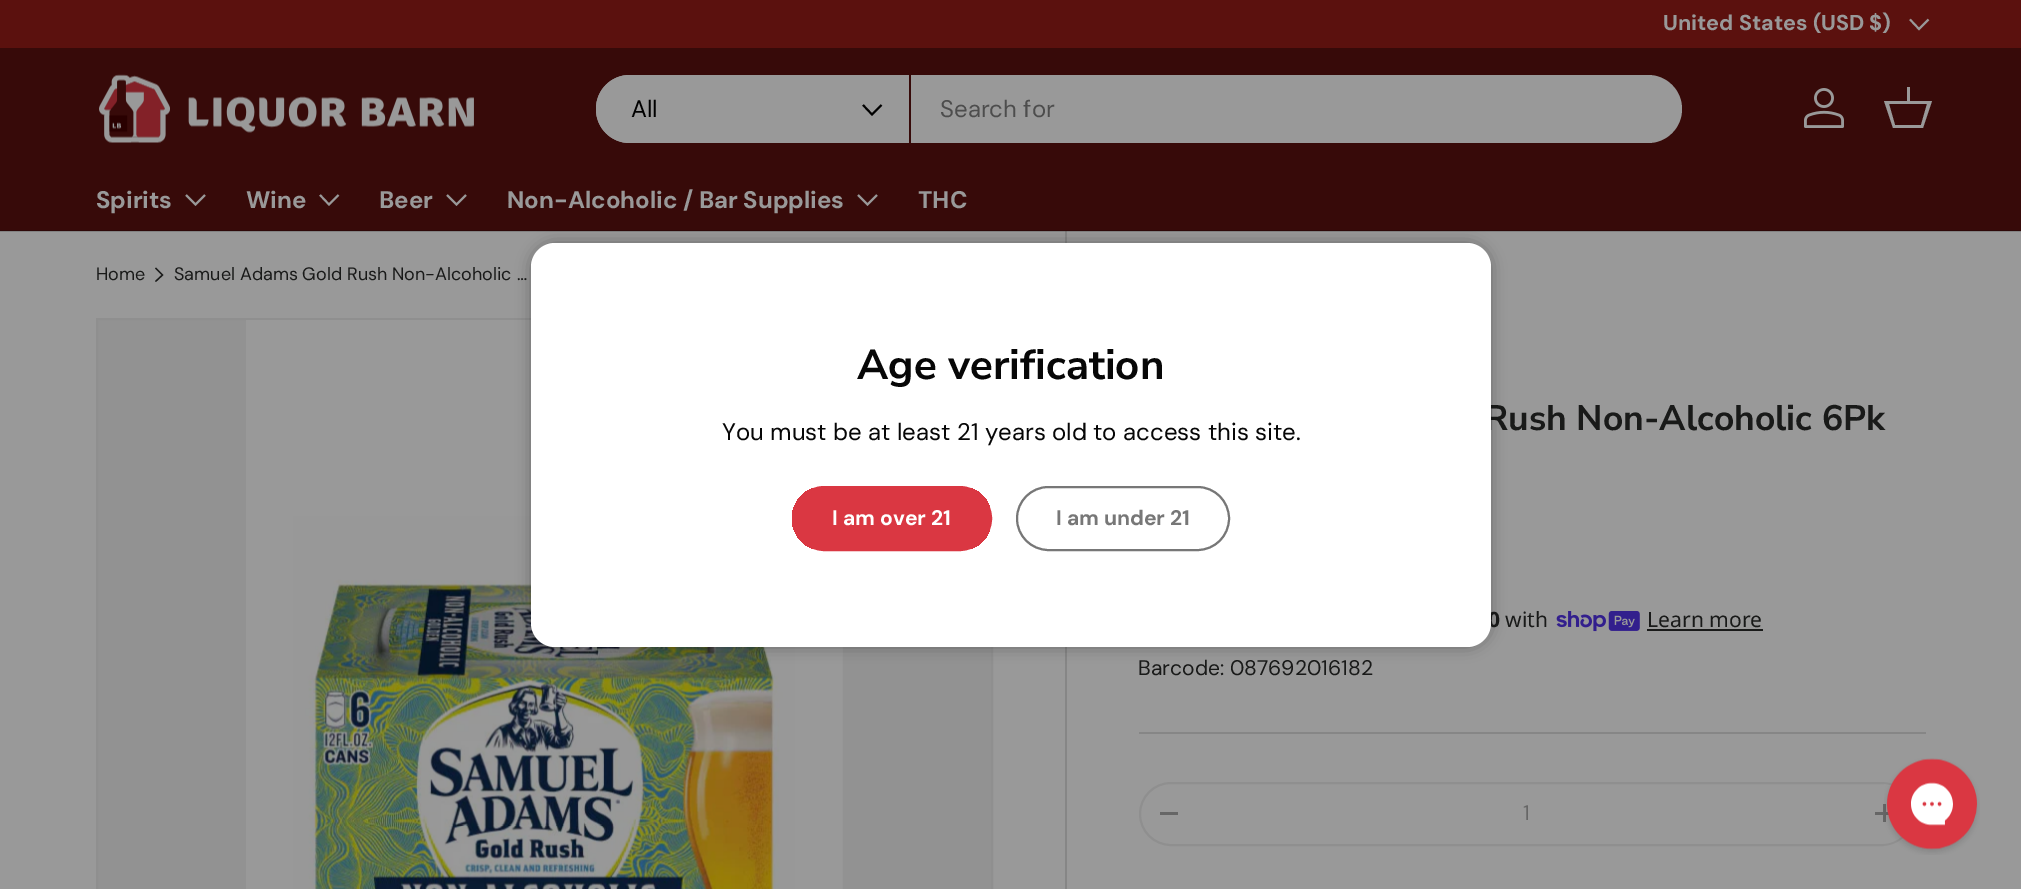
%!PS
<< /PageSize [2021 889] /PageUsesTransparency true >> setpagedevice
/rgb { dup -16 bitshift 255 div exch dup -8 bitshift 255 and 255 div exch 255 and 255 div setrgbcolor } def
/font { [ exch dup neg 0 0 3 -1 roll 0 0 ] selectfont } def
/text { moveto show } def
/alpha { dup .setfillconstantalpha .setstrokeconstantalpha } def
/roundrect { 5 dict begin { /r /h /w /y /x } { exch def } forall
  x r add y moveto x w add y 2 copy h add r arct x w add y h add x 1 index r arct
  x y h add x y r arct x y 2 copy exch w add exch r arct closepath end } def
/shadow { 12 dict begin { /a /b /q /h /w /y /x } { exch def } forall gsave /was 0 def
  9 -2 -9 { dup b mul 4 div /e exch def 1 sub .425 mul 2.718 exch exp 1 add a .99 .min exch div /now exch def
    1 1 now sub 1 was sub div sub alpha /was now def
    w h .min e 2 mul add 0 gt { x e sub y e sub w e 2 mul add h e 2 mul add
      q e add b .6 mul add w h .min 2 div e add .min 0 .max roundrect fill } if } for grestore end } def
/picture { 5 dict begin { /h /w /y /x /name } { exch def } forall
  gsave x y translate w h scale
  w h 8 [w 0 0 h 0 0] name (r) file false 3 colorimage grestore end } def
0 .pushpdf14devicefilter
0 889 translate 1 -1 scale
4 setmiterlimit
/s1 { /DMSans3-Bold 21.6 font 16#999999 rgb } def
/s2 { /DMSans-Regular 24 font 16#000000 rgb } def
/s3 { /DMSans-Regular 24 font 16#4D4D4D rgb } def
/s4 { /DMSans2-Bold 24 font 16#999999 rgb } def
/s5 { /DMSans-Bold 24 font 16#999999 rgb } def
/s6 { /DMSans-Regular 18 font 16#191A19 rgb } def
/s7 { /NunitoSans-Bold 35.4 font 16#191A19 rgb } def
/s8 { /NotoSans-Bold 21.1 font 16#191A19 rgb } def
/s9 { /NotoSans-Regular 21.1 font 16#191A19 rgb } def
/s10 { /DMSans-Regular 21.1 font 16#191A19 rgb } def
/s11 { /DMSans-Regular 21.1 font 16#666666 rgb } def
/s12 { /NunitoSans-Bold 42 font 16#070707 rgb } def
/s13 { /DMSans-Regular 24 font 16#070707 rgb } def
/s14 { /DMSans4-Bold 21.1 font 16#FFFFFF rgb } def
/s15 { /DMSans4-Bold 21.1 font 16#777777 rgb } def
16#999999 rgb
0 0 2021 889 rectfill
16#828282 rgb
0 231 2021 1 rectfill
16#5B110E rgb
0 0 2021 48 rectfill
s1
(United States \(USD $\)) 1663 30 text
1.9 setlinewidth
1928.5 19.5 moveto 1919 29 lineto 1910 19.5 lineto stroke
16#370A09 rgb
0 48 2021 182 rectfill
16#2E0808 rgb
0 230 2021 1 rectfill
(pic1.raw) 99 74 375 69 picture
16#999999 rgb
596 75 1086 68 34 roundrect fill
630 75 moveto 911 75 lineto 911 143 lineto 630 143 lineto 611 143 596 128 596 109 curveto 596 90 611 75 630 75 curveto closepath fill
16#370A09 rgb
909 75 2 68 rectfill
s2
(All) 631 117 text
881.5 105 moveto 872 114.5 lineto 863 105 lineto stroke
s3
(Search for) 940 117 text
(pic2.raw) 1804 88 40 40 picture
16#999999 rgb
1907 101 moveto 1907 87 lineto 1910 87 lineto 1910 101 lineto 1932 101 lineto 1923 128 lineto 1893 128 lineto 1884 101 lineto closepath 1889 104 moveto 1895 125 lineto 1921 125 lineto 1927 104 lineto closepath fill
s4
(Spirits) 96 208 text
205 195 moveto 195.5 204.5 lineto 186 195 lineto stroke
(Wine) 246 208 text
338.5 195 moveto 329 204.5 lineto 320 195 lineto stroke
(Beer) 379 208 text
466 195 moveto 456.5 204.5 lineto 447 195 lineto stroke
(Non-Alcoholic / Bar Supplies) 507 208 text
877 195 moveto 867.5 204.5 lineto 858 195 lineto stroke
s5
(THC) 918 208 text
s6
(Home) 96 280 text
1.3 setlinewidth
155.5 268 moveto 162.5 275 lineto 155.5 281.5 lineto stroke
(Samuel Adams Gold Rush Non-Alcoholic …) 174 280 text
16#929292 rgb
97 319 moveto 992 319 lineto 992 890 lineto 97 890 lineto closepath gsave fill grestore
16#8F8F8F rgb
2 setlinewidth
stroke
(pic3.raw) 246 320 597 569 picture
16#868686 rgb
1065 231 2 658 rectfill
16#727272 rgb
1065 231 2 1 rectfill
s7
(Rush Non-Alcoholic 6Pk) 1484 430 text
s8
(0) 1488 627 text
s9
(with) 1505 627 text
(pic4.raw) 1556 611 84 21 picture
(Learn more) 1647 627 text
1647 629 116 2 rectfill
s10
(Barcode: 087692016182) 1138 675 text
16#868686 rgb
1139 732 787 2 rectfill
16#8F8F8F rgb
1140 783 773 62 31 roundrect stroke
16#666666 rgb
1160 812 18 3 rectfill
(1) 1523 820 text
1875 812 18 3 rectfill
1883 804 3 18 rectfill
16#000000 rgb
531 243 960 404 24 7.5 0.3 shadow
16#FFFFFF rgb
531 243 960 404 24 roundrect fill
s12
(Age verification) 857 379 text
s13
(You must be at least 21 years old to access this site.) 722 440 text
gsave
792 486 200 65 32.5 roundrect clip newpath
gsave 792 488 moveto 990 488 lineto 990 549 lineto 792 549 lineto closepath clip newpath
<< /ShadingType 2 /ColorSpace /DeviceRGB /Coords [411 447 980 589] /Extend [true true] /Function << /FunctionType 3 /Domain [0 1] /Functions [<< /FunctionType 2 /Domain [0 1] /C0 [0.886 0.384 0.416] /C1 [0.886 0.384 0.416] /N 1 >> << /FunctionType 2 /Domain [0 1] /C0 [0.855 0.216 0.259] /C1 [0.855 0.216 0.259] /N 1 >>] /Bounds [0.6] /Encode [0 1 0 1] >> >> shfill grestore
grestore
16#DA3742 rgb
793 487 198 63 31.5 roundrect stroke
s14
(I am over 21) 832 525 text
16#777777 rgb
1017 487 212 63 31.5 roundrect stroke
(I am under 21) 1056 525 text
(pic5.raw) 1884 758 96 97 picture
.poppdf14devicefilter showpage
